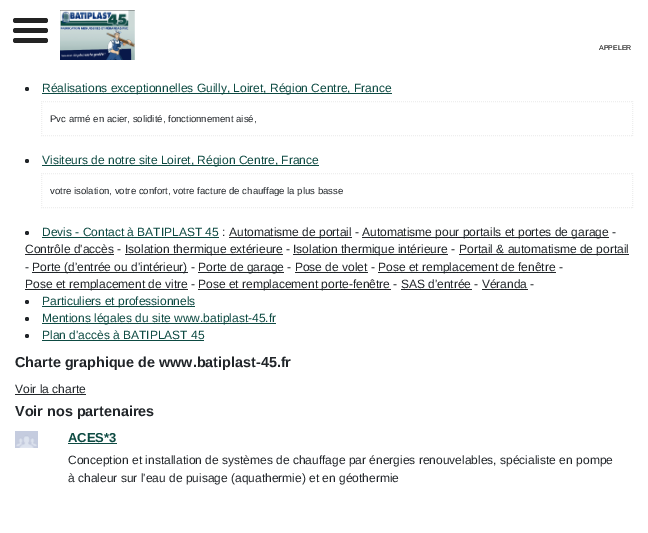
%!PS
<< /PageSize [648 533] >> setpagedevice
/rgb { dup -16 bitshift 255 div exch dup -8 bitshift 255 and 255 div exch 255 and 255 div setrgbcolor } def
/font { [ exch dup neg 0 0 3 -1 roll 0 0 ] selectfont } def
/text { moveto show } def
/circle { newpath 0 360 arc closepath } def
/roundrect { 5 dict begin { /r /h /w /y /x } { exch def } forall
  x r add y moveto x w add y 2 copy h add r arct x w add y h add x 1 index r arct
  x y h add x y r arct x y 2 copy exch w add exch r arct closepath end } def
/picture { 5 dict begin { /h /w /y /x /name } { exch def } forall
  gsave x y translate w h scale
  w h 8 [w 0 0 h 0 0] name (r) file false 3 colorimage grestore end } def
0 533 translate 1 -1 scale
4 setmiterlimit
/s1 { /LiberationSans-Regular 7 font 16#000000 rgb } def
/s2 { /LiberationSans-Regular 12 font 16#0D4A42 rgb } def
/s3 { /LiberationSans-Regular 9.6 font 16#212529 rgb } def
/s4 { /LiberationSans-Regular 12 font 16#212529 rgb } def
/s5 { /LiberationSans-Bold 14.4 font 16#212529 rgb } def
/s6 { /LiberationSans-Bold 13 font 16#0D4A42 rgb } def
16#FFFFFF rgb
0 0 648 533 rectfill
16#232323 rgb
13 28 35 5 2.5 roundrect fill
13 18 35 5 2.5 roundrect fill
13 38 35 5 2.5 roundrect fill
(pic1.raw) 60 10 75 50 picture
s1
(APPELER) 599 50 text
16#212529 rgb
27 89 2 circle fill
16#0D4A42 rgb
42 93 350 1 rectfill
s2
(Réalisations exceptionnelles Guilly, Loiret, Région Centre, France) 42 92 text
16#EEEEEE rgb
[1 1] 0 setdash
41 101.5 moveto 633 101.5 lineto stroke
632.5 101 moveto 632.5 136 lineto stroke
41 135.5 moveto 633 135.5 lineto stroke
41.5 101 moveto 41.5 136 lineto stroke
s3
(Pvc armé en acier, solidité, fonctionnement aisé,) 50 122 text
27 161 2 circle fill
16#0D4A42 rgb
42 165 277 1 rectfill
s2
(Visiteurs de notre site Loiret, Région Centre, France) 42 164 text
16#EEEEEE rgb
41 173.5 moveto 633 173.5 lineto stroke
632.5 173 moveto 632.5 208 lineto stroke
41 207.5 moveto 633 207.5 lineto stroke
41.5 173 moveto 41.5 208 lineto stroke
s3
(votre isolation, votre confort, votre facture de chauffage la plus basse) 50 194 text
27 233 2 circle fill
s2
(Devis - Contact à BATIPLAST 45) 42 236 text
42 237 177 1 rectfill
s4
(:) 222 236 text
229 237 123 1 rectfill
(Automatisme de portail -) 229 236 text
362 237 247 1 rectfill
(Automatisme pour portails et portes de garage -) 362 236 text
(Contrôle d'accès -) 25 253 text
25 254 89 1 rectfill
125 254 158 1 rectfill
(Isolation thermique extérieure -) 125 253 text
293 254 155 1 rectfill
(Isolation thermique intérieure -) 293 253 text
459 254 170 1 rectfill
(Portail & automatisme de portail) 459 253 text
(-) 25 271 text
32 272 156 1 rectfill
(Porte \(d'entrée ou d'intérieur\) -) 32 271 text
198 272 86 1 rectfill
(Porte de garage - Pose de volet -) 198 271 text
378 272 178 1 rectfill
(Pose et remplacement de fenêtre -) 378 271 text
295 272 73 1 rectfill
25 289 163 1 rectfill
(Pose et remplacement de vitre -) 25 288 text
198 289 193 1 rectfill
(Pose et remplacement porte-fenêtre - SAS d'entrée - Véranda -) 198 288 text
401 289 71 1 rectfill
482 289 46 1 rectfill
27 302 2 circle fill
16#0D4A42 rgb
42 306 153 1 rectfill
(Particuliers et professionnels) 42 305 text
16#212529 rgb
27 319 2 circle fill
16#0D4A42 rgb
42 323 234 1 rectfill
(Mentions légales du site www.batiplast-45.fr) 42 322 text
16#212529 rgb
27 336 2 circle fill
s2
(Plan d'accès à BATIPLAST 45) 42 339 text
42 340 162 1 rectfill
s5
(Charte graphique de www.batiplast-45.fr) 15 367 text
s4
(Voir la charte) 15 393 text
15 394 71 1 rectfill
s5
(Voir nos partenaires) 15 416 text
(pic2.raw) 15 431 23 17 picture
s6
(ACES*3) 68 442 text
68 443 49 1 rectfill
s4
(Conception et installation de systèmes de chauffage par énergies renouvelables, spécialiste en pompe) 68 464 text
(à chaleur sur l'eau de puisage \(aquathermie\) et en géothermie) 68 482 text
showpage
